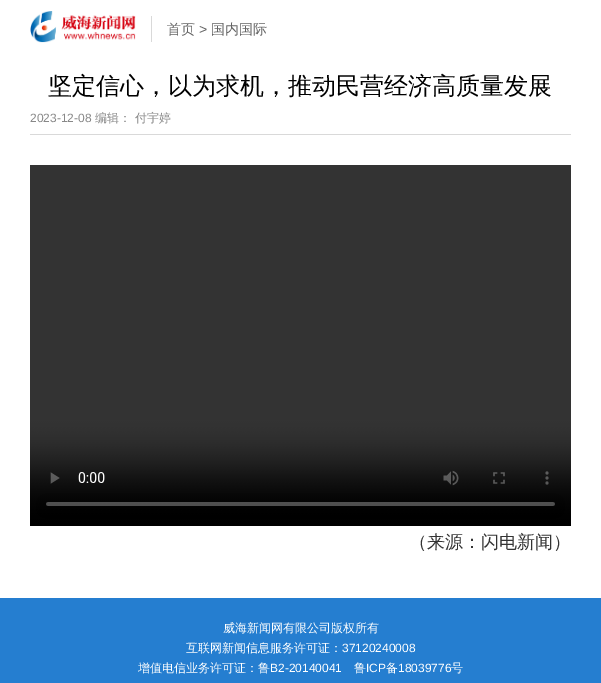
%!PS
<< /PageSize [601 683] >> setpagedevice
/rgb { dup -16 bitshift 255 div exch dup -8 bitshift 255 and 255 div exch 255 and 255 div setrgbcolor } def
/font { [ exch dup neg 0 0 3 -1 roll 0 0 ] selectfont } def
/text { moveto show } def
/picture { 5 dict begin { /h /w /y /x /name } { exch def } forall
  gsave x y translate w h scale
  w h 8 [w 0 0 h 0 0] name (r) file false 3 colorimage grestore end } def
0 683 translate 1 -1 scale
4 setmiterlimit
/s1 { /WenQuanYiZenHei-Medium 14 font 16#636363 rgb } def
/s2 { /LiberationSans-Regular 14 font 16#636363 rgb } def
/s3 { /WenQuanYiZenHei-Medium 24 font 16#000000 rgb } def
/s4 { /LiberationSans-Regular 12 font 16#888888 rgb } def
/s5 { /WenQuanYiZenHei-Medium 12 font 16#888888 rgb } def
/s6 { /WenQuanYiZenHei-Medium 18 font 16#333333 rgb } def
/s7 { /WenQuanYiZenHei-Medium 12 font 16#FFFFFF rgb } def
/s8 { /LiberationSans-Regular 12 font 16#FFFFFF rgb } def
16#FFFFFF rgb
0 0 601 683 rectfill
(pic1.raw) 30 11 106 32 picture
16#D9D9D9 rgb
151 16 1 26 rectfill
s1
(首页) 167 34 text
s2
(>) 199 34 text
s1
(国内国际) 211 34 text
s3
(坚定信心，以为求机，推动民营经济高质量发展) 48 94 text
16#D9D9D9 rgb
30 134 541 1 rectfill
s4
(2023-12-08) 30 122 text
s5
(编辑： 付宇婷) 95 122 text
(pic2.raw) 30 165 541 361 picture
s6
(（来源：闪电新闻）) 409 548 text
16#257ED0 rgb
0 598 601 85 rectfill
s7
(威海新闻网有限公司版权所有) 223 632 text
(互联网新闻信息服务许可证：) 186 652 text
s8
(37120240008) 342 652 text
s7
(增值电信业务许可证：鲁) 138 672 text
s8
(B2-20140041) 270 672 text
s7
(鲁) 354 672 text
s8
(ICP) 366 672 text
s7
(备) 386 672 text
s8
(18039776) 398 672 text
s7
(号) 451 672 text
showpage
